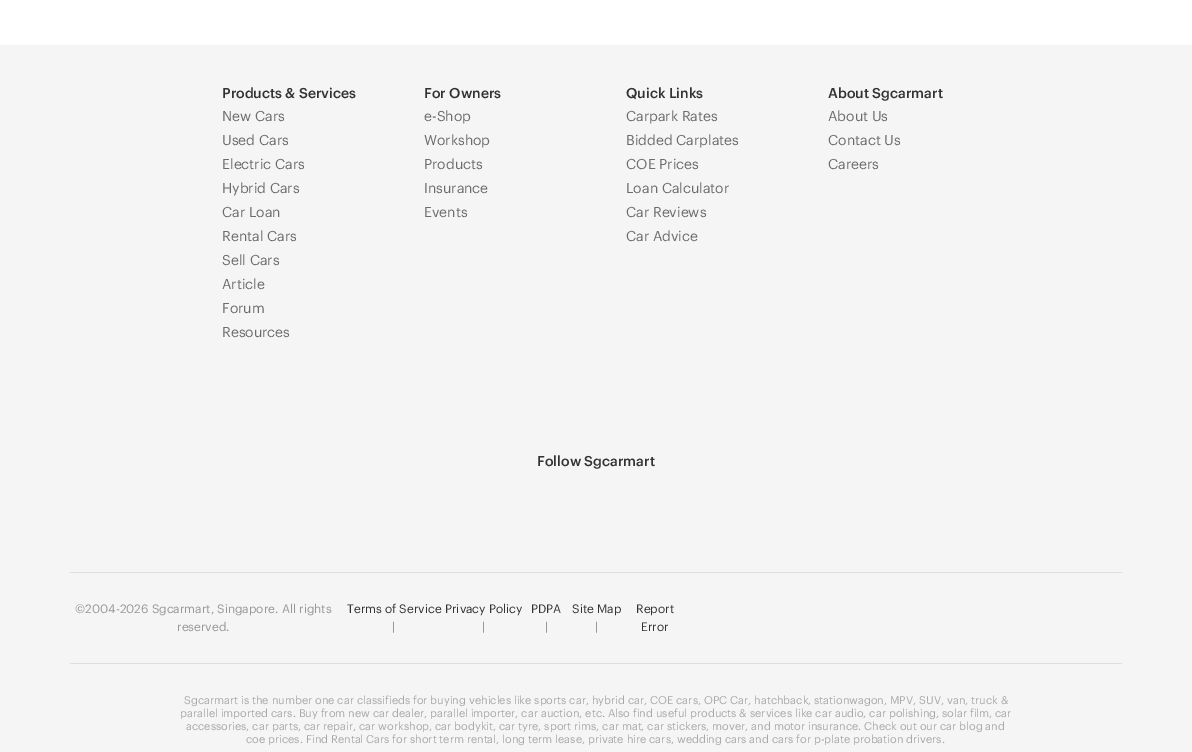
%!PS
<< /PageSize [1192 752] >> setpagedevice
/rgb { dup -16 bitshift 255 div exch dup -8 bitshift 255 and 255 div exch 255 and 255 div setrgbcolor } def
/font { [ exch dup neg 0 0 3 -1 roll 0 0 ] selectfont } def
/text { moveto show } def
0 752 translate 1 -1 scale
4 setmiterlimit
/s1 { /Graphik-Medium 14 font 16#333333 rgb } def
/s2 { /Graphik-Regular 14 font 16#6C6C6C rgb } def
/s3 { /Graphik-Regular 12 font 16#989898 rgb } def
/s4 { /Graphik-Regular 12 font 16#333333 rgb } def
/s5 { /Graphik-Regular 11 font 16#A9A9A9 rgb } def
16#FFFFFF rgb
0 0 1192 752 rectfill
16#F5F5F5 rgb
0 45 1192 707 rectfill
s1
(Products & Services) 222 98 text
s2
(New Cars) 222 121 text
(Used Cars) 222 145 text
(Electric Cars) 222 169 text
(Hybrid Cars) 222 193 text
(Car Loan) 222 217 text
(Rental Cars) 222 241 text
(Sell Cars) 222 265 text
(Article) 222 289 text
(Forum) 222 313 text
(Resources) 222 337 text
s1
(For Owners) 424 98 text
s2
(e-Shop) 424 121 text
(Workshop) 424 145 text
(Products) 424 169 text
(Insurance) 424 193 text
(Events) 424 217 text
s1
(Quick Links) 626 98 text
s2
(Carpark Rates) 626 121 text
(Bidded Carplates) 626 145 text
(COE Prices) 626 169 text
(Loan Calculator) 626 193 text
(Car Reviews) 626 217 text
(Car Advice) 626 241 text
s1
(About Sgcarmart) 828 98 text
s2
(About Us) 828 121 text
(Contact Us) 828 145 text
(Careers) 828 169 text
s1
(Follow Sgcarmart) 537 466 text
16#DDDDDD rgb
70 572 1052 1 rectfill
70 663 1052 1 rectfill
s3
(©2004-2026 Sgcarmart, Singapore. All rights) 75 613 text
(reserved.) 177 631 text
s4
(Terms of Service) 347 613 text
s3
(|) 392 631 text
s4
(Privacy Policy) 445 613 text
s3
(|) 482 631 text
s4
(PDPA) 531 613 text
s3
(|) 545 631 text
s4
(Site Map) 572 613 text
s3
(|) 595 631 text
s4
(Report) 636 613 text
(Error) 641 631 text
s5
(Sgcarmart is the number one car classifieds for buying vehicles like sports car, hybrid car, COE cars, OPC Car, hatchback, stationwagon, MPV, SUV, van, truck &) 184 704 text
(parallel imported cars. Buy from new car dealer, parallel importer, car auction, etc. Also find useful products & services like car audio, car polishing, solar film, car) 180 717 text
(accessories, car parts, car repair, car workshop, car bodykit, car tyre, sport rims, car mat, car stickers, mover, and motor insurance. Check out our car blog and) 186 730 text
(coe prices. Find Rental Cars for short term rental, long term lease, private hire cars, wedding cars and cars for p-plate probation drivers.) 246 743 text
showpage
